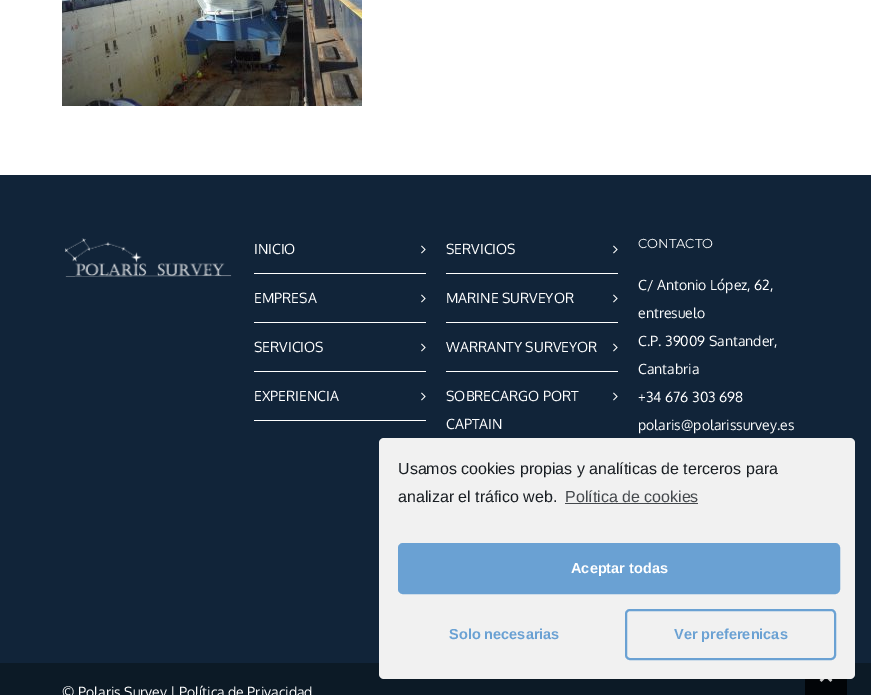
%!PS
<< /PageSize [871 695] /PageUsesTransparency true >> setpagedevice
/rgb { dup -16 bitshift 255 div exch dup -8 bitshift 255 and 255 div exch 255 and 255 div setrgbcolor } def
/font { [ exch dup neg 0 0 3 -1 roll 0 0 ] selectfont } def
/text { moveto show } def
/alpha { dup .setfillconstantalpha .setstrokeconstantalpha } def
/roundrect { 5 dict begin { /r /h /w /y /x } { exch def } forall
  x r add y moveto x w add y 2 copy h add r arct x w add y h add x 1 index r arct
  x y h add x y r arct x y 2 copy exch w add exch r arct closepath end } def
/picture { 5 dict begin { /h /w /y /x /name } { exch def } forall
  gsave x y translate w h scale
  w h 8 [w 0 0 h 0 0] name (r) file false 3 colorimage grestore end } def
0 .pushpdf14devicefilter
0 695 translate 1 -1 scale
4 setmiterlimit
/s1 { /Oxygen-Regular 14 font 16#FFFFFF rgb } def
/s2 { /Montserrat-Regular 13 font 16#FFFFFF rgb } def
/s3 { /LiberationSans-Regular 16 font 16#191E23 rgb } def
/s4 { /LiberationSans-Regular 16 font 16#44484C rgb } def
/s5 { /LiberationSans-Bold 14.5 font 16#FFFFFF rgb } def
/s6 { /LiberationSans-Bold 14.5 font 16#6AA1D3 rgb } def
16#FFFFFF rgb
0 0 871 695 rectfill
(pic1.raw) 62 0 300 106 picture
16#112439 rgb
0 175 871 488 rectfill
(pic2.raw) 64 238 168 39 picture
16#FFFFFF rgb
254 273 172 1 rectfill
s1
(INICIO) 254 254 text
(pic3.raw) 421 245 5 9 picture
254 322 172 1 rectfill
(EMPRESA) 254 303 text
(pic3.raw) 421 294 5 9 picture
254 371 172 1 rectfill
(SERVICIOS) 254 352 text
(pic3.raw) 421 343 5 9 picture
254 420 172 1 rectfill
(EXPERIENCIA) 254 401 text
(pic3.raw) 421 392 5 9 picture
446 273 172 1 rectfill
(SERVICIOS) 446 254 text
(pic3.raw) 613 245 5 9 picture
446 322 172 1 rectfill
(MARINE SURVEYOR) 446 303 text
(pic3.raw) 613 294 5 9 picture
446 371 172 1 rectfill
(WARRANTY SURVEYOR) 446 352 text
(pic3.raw) 613 343 5 9 picture
(SOBRECARGO PORT) 446 401 text
(CAPTAIN) 446 429 text
(pic3.raw) 613 392 5 9 picture
s2
(CONTACTO) 638 248 text
s1
(C/ Antonio López, 62,) 638 290 text
(entresuelo) 638 318 text
(C.P. 39009 Santander,) 638 346 text
(Cantabria) 638 374 text
(+34 676 303 698) 638 402 text
(polaris@polarissurvey.es) 638 430 text
16#0C1A26 rgb
0 663 871 32 rectfill
s1
(© Polaris Survey | Política de Privacidad) 62 697 text
16#F1F1F1 rgb
379 438 476 241 5 roundrect fill
s3
(Usamos cookies propias y analíticas de terceros para) 398 474 text
(analizar el tráfico web.) 398 502 text
s4
(Política de cookies) 565 502 text
565 503 133 1 rectfill
16#6AA1D3 rgb
399 544 440 49 4 roundrect gsave fill grestore
2 setlinewidth
stroke
s5
(Aceptar todas) 571 573 text
s6
(Solo necesarias) 449 639 text
626 610 209 49 4 roundrect stroke
(Ver preferenicas) 674 639 text
0.8 alpha
16#000000 rgb
805 679 42 16 rectfill
1 alpha
(pic4.raw) 819 679 14 3 picture
.poppdf14devicefilter showpage
